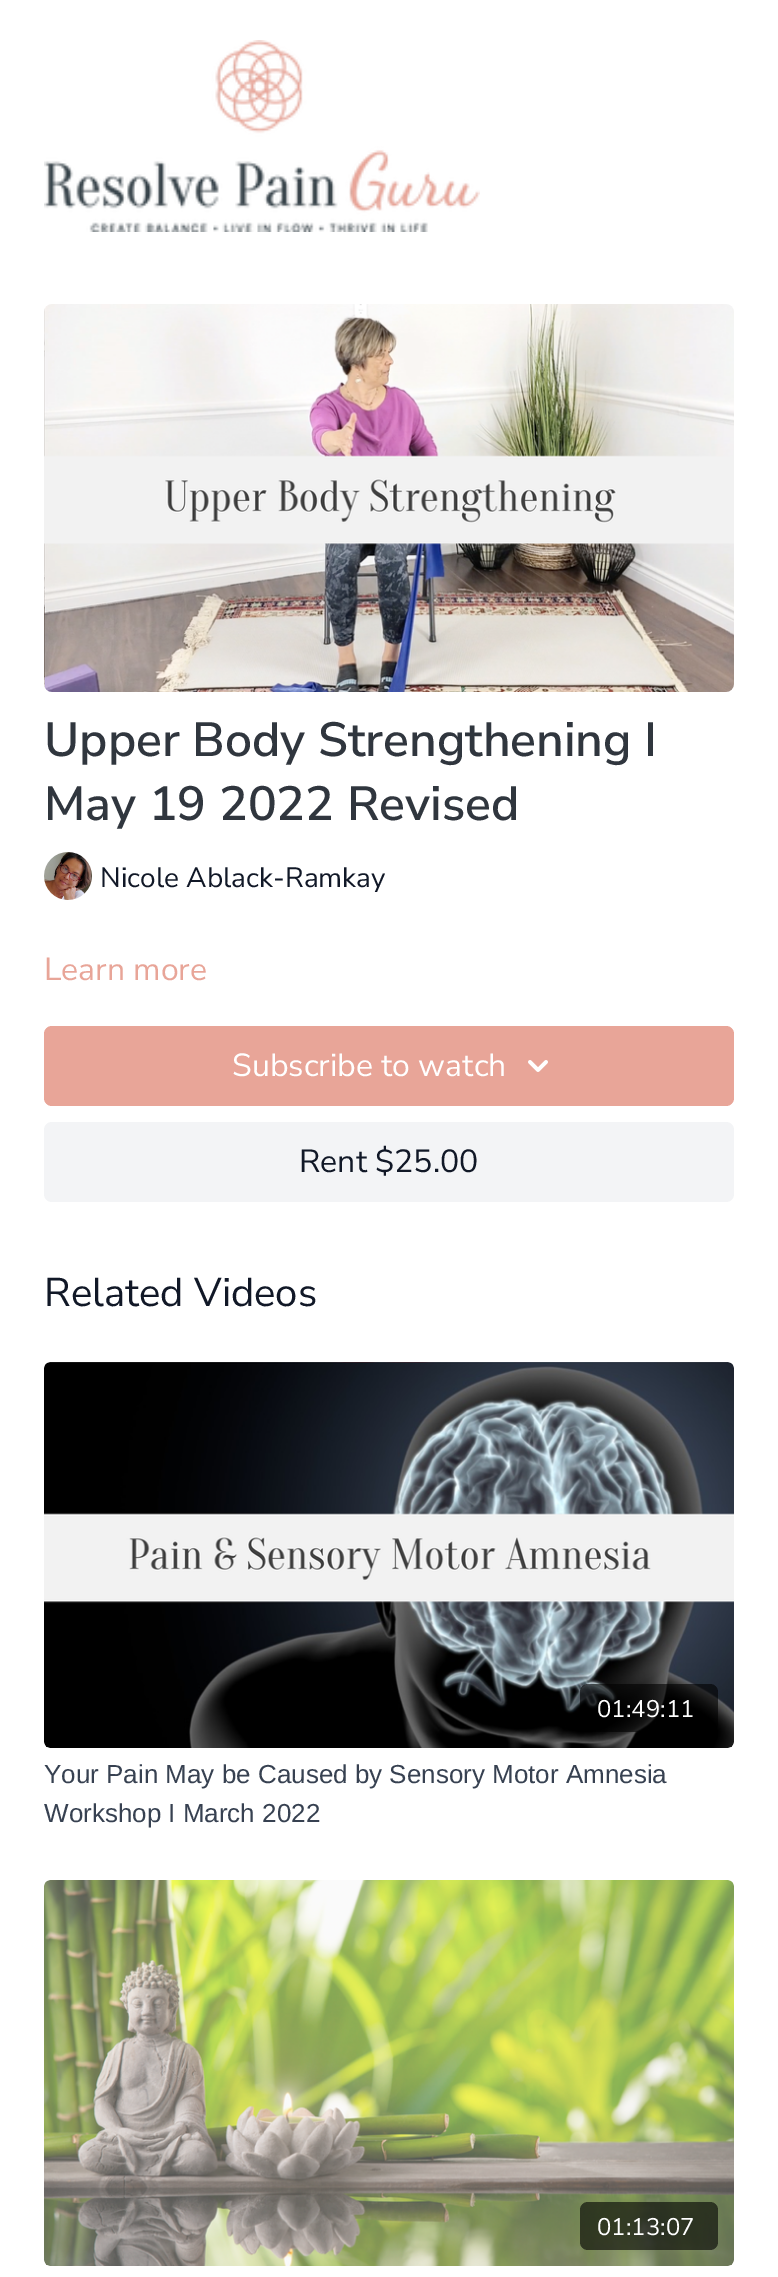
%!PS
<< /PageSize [778 2277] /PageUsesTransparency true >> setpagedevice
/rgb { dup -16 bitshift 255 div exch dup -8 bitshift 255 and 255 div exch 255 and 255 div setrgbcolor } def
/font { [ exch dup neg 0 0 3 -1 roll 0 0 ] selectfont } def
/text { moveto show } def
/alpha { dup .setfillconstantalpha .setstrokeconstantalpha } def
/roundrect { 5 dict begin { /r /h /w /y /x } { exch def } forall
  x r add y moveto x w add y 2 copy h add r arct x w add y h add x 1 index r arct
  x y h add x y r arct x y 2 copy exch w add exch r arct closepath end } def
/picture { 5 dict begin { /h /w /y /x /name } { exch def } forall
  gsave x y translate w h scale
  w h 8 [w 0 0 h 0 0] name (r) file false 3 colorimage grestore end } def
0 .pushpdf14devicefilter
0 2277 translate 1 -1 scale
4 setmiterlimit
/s1 { /NunitoSans-SemiBold 48 font 16#30363E rgb } def
/s2 { /NunitoSans-Regular 28 font 16#111827 rgb } def
/s3 { /NunitoSans-Regular 32 font 16#E8A598 rgb } def
/s4 { /NunitoSans-Regular 32 font 16#FFFFFF rgb } def
/s5 { /NunitoSans-Regular 32 font 16#111827 rgb } def
/s6 { /NunitoSans-Regular 40 font 16#111827 rgb } def
/s7 { /NunitoSans-Regular 24 font 16#FFFFFF rgb } def
/s8 { /LiberationSans-Regular 26 font 16#374151 rgb } def
16#FFFFFF rgb
0 0 778 2277 rectfill
(pic1.raw) 44 40 436 192 picture
(pic2.raw) 44 304 690 388 picture
s1
(Upper Body Strengthening I) 44 756 text
(May 19 2022 Revised) 44 820 text
(pic3.raw) 44 852 48 48 picture
s2
(Nicole Ablack-Ramkay) 100 887 text
s3
(Learn more) 44 980 text
44 1026 690 80 8 roundrect fill
s4
(Subscribe to watch) 232 1076 text
(pic4.raw) 528 1060 20 12 picture
16#F3F4F6 rgb
44 1122 690 80 8 roundrect fill
s5
(Rent $25.00) 299 1172 text
s6
(Related Videos) 44 1306 text
(pic5.raw) 44 1362 690 386 picture
0.6 alpha
16#000000 rgb
580 1684 138 48 8 roundrect fill
1 alpha
s7
(01:49:11) 597 1717 text
s8
(Your Pain May be Caused by Sensory Motor Amnesia) 44 1783 text
(Workshop I March 2022) 44 1822 text
(pic6.raw) 44 1880 690 386 picture
0.6 alpha
16#000000 rgb
580 2202 138 48 8 roundrect fill
1 alpha
s7
(01:13:07) 597 2235 text
.poppdf14devicefilter showpage
